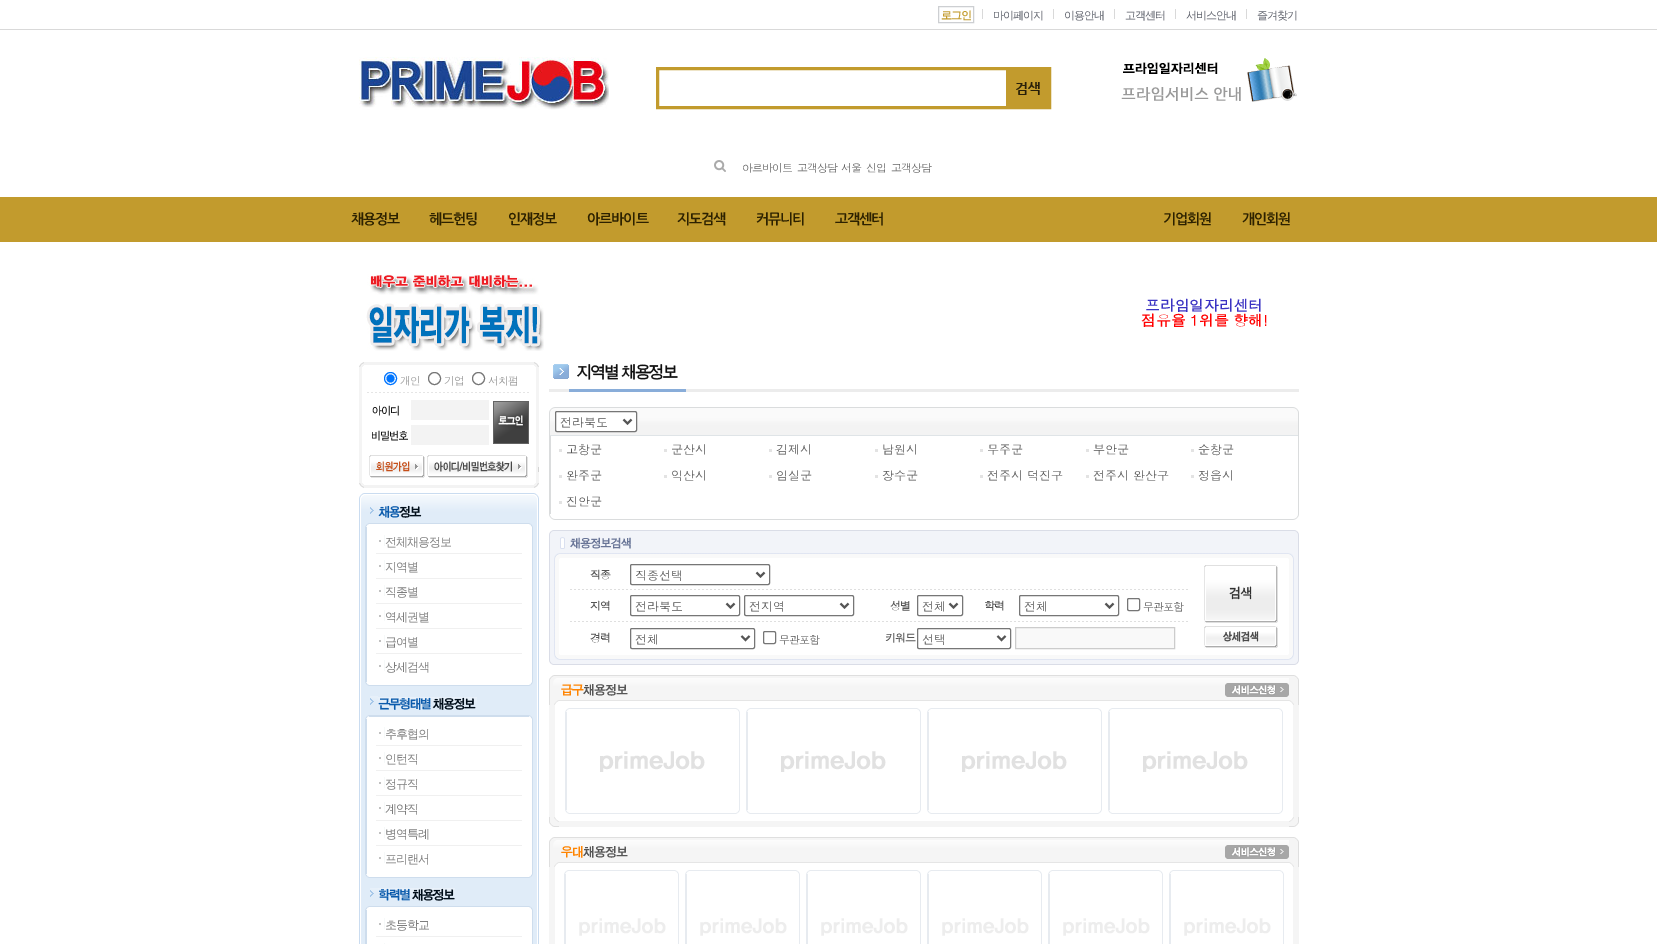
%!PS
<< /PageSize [1657 944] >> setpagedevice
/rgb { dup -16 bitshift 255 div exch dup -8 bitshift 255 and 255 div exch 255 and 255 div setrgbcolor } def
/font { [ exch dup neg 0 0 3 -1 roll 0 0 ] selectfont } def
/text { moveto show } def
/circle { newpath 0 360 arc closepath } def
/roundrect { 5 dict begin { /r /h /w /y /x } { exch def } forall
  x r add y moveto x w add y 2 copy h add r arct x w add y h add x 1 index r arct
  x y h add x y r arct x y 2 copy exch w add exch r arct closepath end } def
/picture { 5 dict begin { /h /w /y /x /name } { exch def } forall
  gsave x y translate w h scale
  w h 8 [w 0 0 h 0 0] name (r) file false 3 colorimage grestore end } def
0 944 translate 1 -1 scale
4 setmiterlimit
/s1 { /Dotum-Bold 14.75 font 16#3A32C3 rgb } def
/s2 { /Dotum-Bold 14.75 font 16#FF0000 rgb } def
/s3 { /Dotum-Regular 12 font 16#555555 rgb } def
16#FFFFFF rgb
0 0 1657 944 rectfill
16#D9D9D9 rgb
0 29 1657 1 rectfill
16#CDCFD2 rgb
938.5 6.5 35 16 rectstroke
/WenQuanYiZenHei-Bold 11 font
16#C29B2D rgb
941 19 moveto -1 0 (로그인) ashow
16#D9D9D9 rgb
982 9 1 10 rectfill
/WenQuanYiZenHei-Medium 11 font
16#61646E rgb
993 19 moveto -1 0 (마이페이지) ashow
16#D9D9D9 rgb
1053 9 1 10 rectfill
16#61646E rgb
1064 19 moveto -1 0 (이용안내) ashow
16#D9D9D9 rgb
1114 9 1 10 rectfill
16#61646E rgb
1125 19 moveto -1 0 (고객센터) ashow
16#D9D9D9 rgb
1175 9 1 10 rectfill
16#61646E rgb
1186 19 moveto -1 0 (서비스안내) ashow
16#D9D9D9 rgb
1246 9 1 10 rectfill
16#61646E rgb
1257 19 moveto -1 0 (즐겨찾기) ashow
(pic1.raw) 359 57 250 53 picture
16#C29B2D rgb
3 setlinewidth
657.5 68.5 392 39 rectstroke
(pic2.raw) 1006 70 42 36 picture
(pic3.raw) 1121 58 176 44 picture
(pic4.raw) 714 160 12 12 picture
/Dotum-Regular 11 font
16#666666 rgb
742 172 moveto -1 0 (아르바이트) ashow
797 172 moveto -1 0 (고객상담) ashow
841 172 moveto -1 0 (서울) ashow
866 172 moveto -1 0 (신입) ashow
891 172 moveto -1 0 (고객상담) ashow
16#C29B2D rgb
0 197 1657 45 rectfill
/NanumGothic-Bold 14 font
16#2C2100 rgb
351 224 moveto -1 0 (채용정보) ashow
429 224 moveto -1 0 (헤드헌팅) ashow
508 224 moveto -1 0 (인재정보) ashow
587 224 moveto -1 0 (아르바이트) ashow
677 224 moveto -1 0 (지도검색) ashow
756 224 moveto -1 0 (커뮤니티) ashow
835 224 moveto -1 0 (고객센터) ashow
1163 224 moveto -1 0 (기업회원) ashow
1242 224 moveto -1 0 (개인회원) ashow
(pic5.raw) 366 274 178 77 picture
s1
(프라임일자리센터) 1145 311 text
s2
(점유율 1위를 향해!) 1141 326 text
(pic6.raw) 359 362 5 5 picture
16#F3F3F3 rgb
364 362 170 3 rectfill
(pic7.raw) 534 362 5 5 picture
16#F4F4F4 rgb
359 367 3 116 rectfill
16#0075FF rgb
1 setlinewidth
390.5 378.5 6 circle stroke
390.5 378.5 4 circle fill
/Dotum-Regular 11 font
16#999999 rgb
400 385 moveto -1 0 (개인) ashow
16#767676 rgb
434.5 378.5 6 circle stroke
16#999999 rgb
444 385 moveto -1 0 (기업) ashow
16#767676 rgb
478.5 378.5 6 circle stroke
16#999999 rgb
488 385 moveto -1 0 (서치펌) ashow
(pic8.raw) 367 392 162 1 picture
(pic9.raw) 372 405 27 11 picture
16#F3F3F3 rgb
411 400 78 20 rectfill
(pic10.raw) 493 401 36 43 picture
(pic11.raw) 372 430 36 11 picture
411 425 78 20 rectfill
16#F4F4F4 rgb
536 367 3 116 rectfill
(pic12.raw) 369 455 56 23 picture
(pic13.raw) 427 455 101 23 picture
16#D4D4D4 rgb
538 467 1 5 rectfill
(pic14.raw) 359 483 5 5 picture
16#F3F3F3 rgb
364 485 170 3 rectfill
(pic15.raw) 534 483 5 5 picture
(pic16.raw) 359 493 6 30 picture
(pic17.raw) 365 493 168 30 picture
(pic18.raw) 370 507 4 7 picture
(pic19.raw) 378 505 44 13 picture
(pic20.raw) 533 493 6 30 picture
(pic21.raw) 359 523 6 163 picture
(pic22.raw) 365 523 4 4 picture
16#CEDDED rgb
369 523 160 1 rectfill
(pic23.raw) 529 523 4 4 picture
365 527 2 155 rectfill
(pic24.raw) 379 535 6 11 picture
/WenQuanYiZenHei-Medium 12 font
16#7E7E7E rgb
385 546 moveto -1 0 (전체채용정보) ashow
16#F0F0F0 rgb
376 553 146 1 rectfill
(pic24.raw) 379 560 6 11 picture
16#7E7E7E rgb
385 571 moveto -1 0 (지역별) ashow
16#F0F0F0 rgb
376 578 146 1 rectfill
(pic24.raw) 379 585 6 11 picture
16#7E7E7E rgb
385 596 moveto -1 0 (직종별) ashow
16#F0F0F0 rgb
376 603 146 1 rectfill
(pic24.raw) 379 610 6 11 picture
16#7E7E7E rgb
385 621 moveto -1 0 (역세권별) ashow
16#F0F0F0 rgb
376 628 146 1 rectfill
(pic24.raw) 379 635 6 11 picture
16#7E7E7E rgb
385 646 moveto -1 0 (급여별) ashow
16#F0F0F0 rgb
376 653 146 1 rectfill
(pic24.raw) 379 660 6 11 picture
16#7E7E7E rgb
385 671 moveto -1 0 (상세검색) ashow
16#CEDDED rgb
532 527 1 155 rectfill
(pic25.raw) 365 682 4 4 picture
369 685 160 1 rectfill
(pic26.raw) 529 682 4 4 picture
(pic27.raw) 533 523 6 163 picture
(pic28.raw) 359 686 6 29 picture
16#E0ECF8 rgb
365 686 168 29 rectfill
(pic29.raw) 370 696 8 9 picture
(pic30.raw) 378 697 99 13 picture
(pic31.raw) 533 686 6 29 picture
(pic21.raw) 359 715 6 163 picture
(pic22.raw) 365 715 4 4 picture
16#CEDDED rgb
369 715 160 2 rectfill
(pic23.raw) 529 715 4 4 picture
365 719 2 155 rectfill
(pic24.raw) 379 727 6 11 picture
16#7E7E7E rgb
385 738 moveto -1 0 (추후협의) ashow
16#F0F0F0 rgb
376 745 146 1 rectfill
(pic24.raw) 379 752 6 11 picture
16#7E7E7E rgb
385 763 moveto -1 0 (인턴직) ashow
16#F0F0F0 rgb
376 770 146 1 rectfill
(pic24.raw) 379 777 6 11 picture
16#7E7E7E rgb
385 788 moveto -1 0 (정규직) ashow
16#F0F0F0 rgb
376 795 146 1 rectfill
(pic24.raw) 379 802 6 11 picture
16#7E7E7E rgb
385 813 moveto -1 0 (계약직) ashow
16#F0F0F0 rgb
376 820 146 1 rectfill
(pic24.raw) 379 827 6 11 picture
16#7E7E7E rgb
385 838 moveto -1 0 (병역특례) ashow
16#F0F0F0 rgb
376 845 146 1 rectfill
(pic24.raw) 379 852 6 11 picture
16#7E7E7E rgb
385 863 moveto -1 0 (프리랜서) ashow
16#CEDDED rgb
532 719 1 155 rectfill
(pic25.raw) 365 874 4 4 picture
369 877 160 1 rectfill
(pic26.raw) 529 874 4 4 picture
(pic27.raw) 533 715 6 163 picture
(pic32.raw) 359 878 6 28 picture
16#E0ECF8 rgb
365 878 168 28 rectfill
(pic29.raw) 370 888 8 9 picture
(pic33.raw) 378 888 77 13 picture
(pic34.raw) 533 878 6 28 picture
(pic35.raw) 359 906 6 38 picture
(pic22.raw) 365 906 4 4 picture
16#CEDDED rgb
369 906 160 1 rectfill
(pic23.raw) 529 906 4 4 picture
365 910 2 34 rectfill
(pic24.raw) 379 918 6 11 picture
16#7E7E7E rgb
385 929 moveto -1 0 (초등학교) ashow
16#F0F0F0 rgb
376 936 146 1 rectfill
16#F6F9F9 rgb
384 943 1 1 rectfill
16#CEDDED rgb
532 910 1 34 rectfill
(pic36.raw) 533 906 6 38 picture
16#ECECEC rgb
549 389 750 3 rectfill
(pic37.raw) 553 364 133 28 picture
(pic38.raw) 549 407 6 29 picture
(pic39.raw) 555 407 738 29 picture
16#FFFFFF rgb
555.5 411.5 81 20 1.5 roundrect gsave fill grestore
16#767676 rgb
stroke
16#555555 rgb
2 setlinewidth
623.5 419.5 moveto 627.5 423.5 lineto 631.5 419.5 lineto stroke
s3
(전라북도) 560 427 text
(pic40.raw) 1293 407 6 29 picture
16#DADCDD rgb
549 436 2 78 rectfill
16#E3E3E3 rgb
559 449 3 3 rectfill
s3
(고창군) 566 454 text
16#E3E3E3 rgb
664 449 3 3 rectfill
s3
(군산시) 671 454 text
16#E3E3E3 rgb
769 449 3 3 rectfill
s3
(김제시) 776 454 text
16#E3E3E3 rgb
875 449 3 3 rectfill
s3
(남원시) 882 454 text
16#E3E3E3 rgb
980 449 3 3 rectfill
s3
(무주군) 987 454 text
16#E3E3E3 rgb
1086 449 3 3 rectfill
s3
(부안군) 1093 454 text
16#E3E3E3 rgb
1191 449 3 3 rectfill
s3
(순창군) 1198 454 text
16#E3E3E3 rgb
559 475 3 3 rectfill
s3
(완주군) 566 480 text
16#E3E3E3 rgb
664 475 3 3 rectfill
s3
(익산시) 671 480 text
16#E3E3E3 rgb
769 475 3 3 rectfill
s3
(임실군) 776 480 text
16#E3E3E3 rgb
875 475 3 3 rectfill
s3
(장수군) 882 480 text
16#E3E3E3 rgb
980 475 3 3 rectfill
s3
(전주시 덕진구) 987 480 text
16#E3E3E3 rgb
1086 475 3 3 rectfill
s3
(전주시 완산구) 1093 480 text
16#E3E3E3 rgb
1191 475 3 3 rectfill
s3
(정읍시) 1198 480 text
16#E3E3E3 rgb
559 501 3 3 rectfill
s3
(진안군) 566 506 text
16#DADCDD rgb
1298 436 1 78 rectfill
(pic41.raw) 549 514 6 6 picture
555 519 738 1 rectfill
(pic42.raw) 1293 514 6 6 picture
(pic43.raw) 549 530 11 29 picture
(pic44.raw) 560 530 728 28 picture
(pic45.raw) 560 537 71 12 picture
(pic46.raw) 1288 530 11 29 picture
(pic47.raw) 549 559 10 95 picture
/Dotum-Bold 11 font
16#555555 rgb
590 579 moveto -1 0 (직종) ashow
16#767676 rgb
1 setlinewidth
630.5 564.5 139 20 1.5 roundrect stroke
16#555555 rgb
2 setlinewidth
756.5 572.5 moveto 760.5 576.5 lineto 764.5 572.5 lineto stroke
s3
(직종선택) 635 580 text
(pic48.raw) 570 589 618 1 picture
/Dotum-Bold 11 font
590 610 moveto -1 0 (지역) ashow
16#767676 rgb
1 setlinewidth
630.5 595.5 109 20 1.5 roundrect stroke
16#555555 rgb
2 setlinewidth
726.5 603.5 moveto 730.5 607.5 lineto 734.5 603.5 lineto stroke
s3
(전라북도) 635 611 text
16#767676 rgb
1 setlinewidth
744.5 595.5 109 20 1.5 roundrect stroke
16#555555 rgb
2 setlinewidth
840.5 603.5 moveto 844.5 607.5 lineto 848.5 603.5 lineto stroke
(전지역) 749 611 text
/Dotum-Bold 11 font
890 610 moveto -1 0 (성별) ashow
16#767676 rgb
1 setlinewidth
917.5 595.5 45 20 1.5 roundrect stroke
16#555555 rgb
2 setlinewidth
949.5 603.5 moveto 953.5 607.5 lineto 957.5 603.5 lineto stroke
s3
(전체) 922 611 text
/Dotum-Bold 11 font
984 610 moveto -1 0 (학력) ashow
16#767676 rgb
1 setlinewidth
1019.5 595.5 99 20 1.5 roundrect stroke
16#555555 rgb
2 setlinewidth
1105.5 603.5 moveto 1109.5 607.5 lineto 1113.5 603.5 lineto stroke
s3
(전체) 1024 611 text
16#767676 rgb
1 setlinewidth
1127.5 598.5 12 12 1.5 roundrect stroke
/Dotum-Regular 11 font
16#555555 rgb
1143 611 moveto -1 0 (무관포함) ashow
(pic48.raw) 570 621 618 1 picture
/Dotum-Bold 11 font
590 642 moveto -1 0 (경력) ashow
16#767676 rgb
630.5 628.5 124 20 1.5 roundrect stroke
16#555555 rgb
2 setlinewidth
741.5 636 moveto 745.5 640 lineto 749.5 636 lineto stroke
s3
(전체) 635 644 text
16#767676 rgb
1 setlinewidth
763.5 631.5 12 12 1.5 roundrect stroke
/Dotum-Regular 11 font
16#555555 rgb
779 644 moveto -1 0 (무관포함) ashow
/Dotum-Bold 11 font
885 642 moveto -1 0 (키워드) ashow
16#767676 rgb
917.5 628.5 93 20 1.5 roundrect stroke
16#555555 rgb
2 setlinewidth
997.5 636 moveto 1001.5 640 lineto 1005.5 636 lineto stroke
s3
(선택) 922 644 text
16#F9F9F9 rgb
1015.5 627.5 moveto 1174.5 627.5 lineto 1174.5 648.5 lineto 1015.5 648.5 lineto closepath gsave fill grestore
16#CCCCCC rgb
1 setlinewidth
stroke
(pic49.raw) 1204 565 74 58 picture
(pic50.raw) 1204 626 74 22 picture
(pic51.raw) 1289 559 10 95 picture
(pic52.raw) 549 654 11 11 picture
(pic53.raw) 560 655 728 10 picture
(pic54.raw) 1288 654 11 11 picture
(pic55.raw) 549 675 10 30 picture
(pic56.raw) 559 675 730 26 picture
(pic57.raw) 561 684 67 12 picture
(pic58.raw) 1225 683 64 14 picture
(pic59.raw) 1289 675 10 30 picture
16#F5F5F5 rgb
549 705 6 112 rectfill
(pic60.raw) 565 708 4 4 picture
16#E7EBF0 rgb
569 708 167 1 rectfill
(pic61.raw) 736 708 4 4 picture
565 712 2 98 rectfill
(pic62.raw) 600 751 105 21 picture
739 712 1 98 rectfill
(pic63.raw) 565 810 4 4 picture
569 813 167 1 rectfill
(pic64.raw) 736 810 4 4 picture
(pic60.raw) 746 708 4 4 picture
750 708 167 1 rectfill
(pic61.raw) 917 708 4 4 picture
746 712 2 98 rectfill
(pic62.raw) 781 751 105 21 picture
920 712 1 98 rectfill
(pic63.raw) 746 810 4 4 picture
750 813 167 1 rectfill
(pic64.raw) 917 810 4 4 picture
(pic60.raw) 927 708 4 4 picture
931 708 167 1 rectfill
(pic61.raw) 1098 708 4 4 picture
927 712 2 98 rectfill
(pic62.raw) 962 751 105 21 picture
1101 712 1 98 rectfill
(pic63.raw) 927 810 4 4 picture
931 813 167 1 rectfill
(pic64.raw) 1098 810 4 4 picture
(pic60.raw) 1108 708 4 4 picture
1112 708 167 1 rectfill
(pic61.raw) 1279 708 4 4 picture
1108 712 2 98 rectfill
(pic62.raw) 1143 751 105 21 picture
1282 712 1 98 rectfill
(pic63.raw) 1108 810 4 4 picture
1112 813 167 1 rectfill
(pic64.raw) 1279 810 4 4 picture
16#F5F5F5 rgb
1293 705 6 112 rectfill
(pic65.raw) 549 817 10 10 picture
559 821 730 6 rectfill
(pic66.raw) 1289 817 10 10 picture
(pic55.raw) 549 837 10 30 picture
(pic56.raw) 559 837 730 26 picture
(pic67.raw) 561 846 67 12 picture
(pic58.raw) 1225 845 64 14 picture
(pic59.raw) 1289 837 10 30 picture
549 867 6 77 rectfill
(pic60.raw) 564 870 4 4 picture
16#E7EBF0 rgb
568 870 107 1 rectfill
(pic61.raw) 675 870 4 4 picture
564 874 2 70 rectfill
(pic68.raw) 579 918 87 18 picture
678 874 1 70 rectfill
(pic60.raw) 685 870 4 4 picture
689 870 107 1 rectfill
(pic61.raw) 796 870 4 4 picture
685 874 2 70 rectfill
(pic68.raw) 700 918 87 18 picture
799 874 1 70 rectfill
(pic60.raw) 806 870 4 4 picture
810 870 107 1 rectfill
(pic61.raw) 917 870 4 4 picture
806 874 2 70 rectfill
(pic68.raw) 821 918 87 18 picture
920 874 1 70 rectfill
(pic60.raw) 927 870 4 4 picture
931 870 107 1 rectfill
(pic61.raw) 1038 870 4 4 picture
927 874 2 70 rectfill
(pic68.raw) 942 918 87 18 picture
1041 874 1 70 rectfill
(pic60.raw) 1048 870 4 4 picture
1052 870 107 1 rectfill
(pic61.raw) 1159 870 4 4 picture
1048 874 2 70 rectfill
(pic68.raw) 1063 918 87 18 picture
1162 874 1 70 rectfill
(pic60.raw) 1169 870 4 4 picture
1173 870 107 1 rectfill
(pic61.raw) 1280 870 4 4 picture
1169 874 2 70 rectfill
(pic68.raw) 1184 918 87 18 picture
1283 874 1 70 rectfill
16#F5F5F5 rgb
1293 867 6 77 rectfill
showpage
